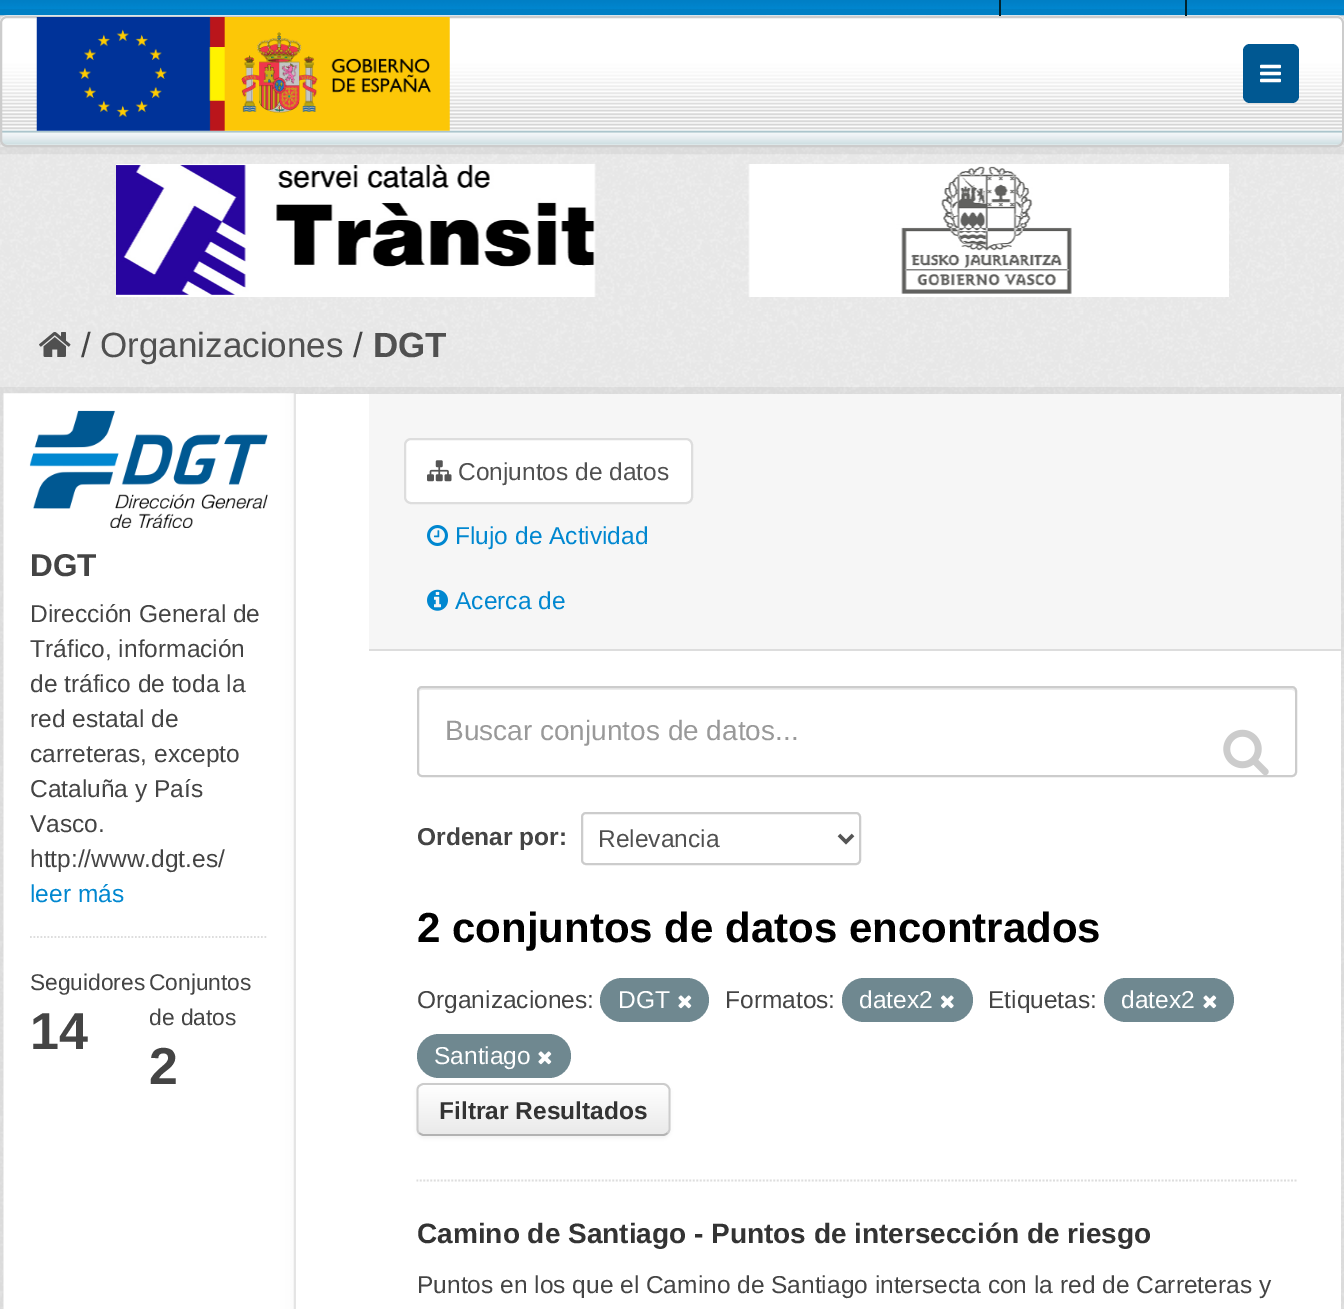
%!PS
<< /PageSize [1344 1309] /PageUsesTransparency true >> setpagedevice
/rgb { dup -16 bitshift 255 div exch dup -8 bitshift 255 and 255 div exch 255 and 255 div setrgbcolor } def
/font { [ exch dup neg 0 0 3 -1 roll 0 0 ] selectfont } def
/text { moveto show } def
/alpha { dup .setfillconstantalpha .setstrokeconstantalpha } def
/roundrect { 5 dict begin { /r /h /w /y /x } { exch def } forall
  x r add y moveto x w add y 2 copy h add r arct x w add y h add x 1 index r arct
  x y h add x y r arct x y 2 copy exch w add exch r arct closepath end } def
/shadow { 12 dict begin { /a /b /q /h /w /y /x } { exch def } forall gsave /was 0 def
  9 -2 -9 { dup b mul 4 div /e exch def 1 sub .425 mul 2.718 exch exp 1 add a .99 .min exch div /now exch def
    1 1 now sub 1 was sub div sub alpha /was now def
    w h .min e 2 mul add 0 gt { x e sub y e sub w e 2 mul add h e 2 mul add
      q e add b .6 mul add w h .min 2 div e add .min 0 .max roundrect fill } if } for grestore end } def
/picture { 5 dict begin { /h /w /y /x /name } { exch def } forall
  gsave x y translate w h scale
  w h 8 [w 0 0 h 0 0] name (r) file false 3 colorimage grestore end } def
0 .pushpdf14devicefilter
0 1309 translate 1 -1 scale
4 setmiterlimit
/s1 { /LiberationSans-Regular 35 font 16#444444 rgb } def
/s2 { /LiberationSans-Regular 35 font 16#505050 rgb } def
/s3 { /LiberationSans-Bold 35 font 16#505050 rgb } def
/s4 { /LiberationSans-Bold 31.5 font 16#444444 rgb } def
/s5 { /LiberationSans-Regular 24.5 font 16#444444 rgb } def
/s6 { /LiberationSans-Regular 24.5 font 16#0087D0 rgb } def
/s7 { /LiberationSans-Regular 22.75 font 16#444444 rgb } def
/s8 { /LiberationSans-Bold 52 font 16#444444 rgb } def
/s9 { /LiberationSans-Regular 24.5 font 16#505050 rgb } def
/s10 { /LiberationSans-Regular 28 font 16#999999 rgb } def
/s11 { /LiberationSans-Bold 24.5 font 16#444444 rgb } def
/s12 { /LiberationSans-Bold 42 font 16#000000 rgb } def
/s13 { /LiberationSans-Regular 24.5 font 16#FFFFFF rgb } def
/s14 { /LiberationSans-Bold 24.5 font 16#333333 rgb } def
/s15 { /LiberationSans-Bold 28 font 16#333333 rgb } def
16#EEEEEE rgb
0 0 1344 1309 rectfill
(pic1.raw) 0 15 1344 298 picture
(pic2.raw) 0 0 1344 16 picture
0.05 alpha
16#000000 rgb
7 setlinewidth
-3.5 12.5 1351 138 rectstroke
1 alpha
(pic3.raw) 0 15 1344 130 picture
16#00232E rgb
999 0 2 16 rectfill
1185 0 2 16 rectfill
16#CCCCCC rgb
2 setlinewidth
1 17 1342 129 6 roundrect stroke
(pic4.raw) 36 17 414 114 picture
16#005892 rgb
1243 44 56 59 7 roundrect fill
(pic5.raw) 1260 64 21 19 picture
(pic6.raw) 116 164 480 133 picture
(pic7.raw) 748 164 481 133 picture
(pic8.raw) 0 313 1344 996 picture
(pic9.raw) 39 332 32 25 picture
s1
(/) 81 357 text
s2
(Organizaciones) 100 357 text
s1
(/) 353 357 text
s3
(DGT) 373 357 text
0.05 alpha
16#000000 rgb
7 setlinewidth
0.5 390.5 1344 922 rectstroke
1 alpha
16#FFFFFF rgb
295 394 1046 915 rectfill
(pic10.raw) 3 393 293 916 picture
(pic11.raw) 29 410 239 118 picture
s4
(DGT) 30 576 text
s5
(Dirección General de) 30 622 text
(Tráfico, información) 30 657 text
(de tráfico de toda la) 30 692 text
(red estatal de) 30 727 text
(carreteras, excepto) 30 762 text
(Cataluña y País) 30 797 text
(Vasco.) 30 832 text
(http://www.dgt.es/) 30 867 text
s6
(leer más) 30 902 text
16#DDDDDD rgb
1.8 setlinewidth
[1.75 1.75] 0 setdash
30 937 moveto 268 937 lineto stroke
s7
(Seguidores) 30 990 text
s8
(14) 30 1049 text
s7
(Conjuntos) 149 990 text
(de datos) 149 1025 text
s8
(2) 149 1084 text
16#F6F6F6 rgb
369 394 moveto 1336 394 lineto 1339 394 1341 396 1341 399 curveto 1341 651 lineto 369 651 lineto closepath fill
16#DDDDDD rgb
369 649 972 2 rectfill
16#FFFFFF rgb
405 439 287 64 6 roundrect gsave fill grestore
16#DDDDDD rgb
2 setlinewidth
[] 0 setdash
stroke
(pic12.raw) 427 460 25 22 picture
s9
(Conjuntos de datos) 458 480 text
(pic13.raw) 427 525 21 21 picture
s6
(Flujo de Actividad) 455 544 text
(pic14.raw) 427 589 21 22 picture
(Acerca de) 455 609 text
16#DDDDDD rgb
1.8 setlinewidth
[1.75 1.75] 0 setdash
416.5 1180.5 moveto 1297 1180.5 lineto stroke
16#ECECEC rgb
422 690 moveto 1292 690 lineto 1293 690 1295 691 1295 693 curveto 1295 690 1294 688 1291 688 curveto 422 688 lineto 419 688 418 690 418 693 curveto 418 691 420 690 422 690 curveto closepath fill
16#CCCCCC rgb
2 setlinewidth
[] 0 setdash
418 687 878 89 4 roundrect stroke
s10
(Buscar conjuntos de datos...) 445 740 text
(pic15.raw) 1223 729 46 46 picture
s11
(Ordenar por:) 417 845 text
16#CCCCCC rgb
582 813 278 51 4 roundrect stroke
16#555555 rgb
3.5 setlinewidth
839 835 moveto 846 842 lineto 853 835 lineto stroke
s9
(Relevancia) 598 847 text
s12
(2 conjuntos de datos encontrados) 417 942 text
s5
(Organizaciones:) 417 1008 text
16#6F8890 rgb
600 978 109 44 22 roundrect fill
s13
(DGT) 618 1008 text
(pic16.raw) 678 995 14 14 picture
s5
(Formatos:) 725 1008 text
16#6F8890 rgb
842 978 131 44 22 roundrect fill
s13
(datex2) 859 1008 text
(pic17.raw) 941 995 13 14 picture
s5
(Etiquetas:) 988 1008 text
16#6F8890 rgb
1104 978 130 44 22 roundrect fill
s13
(datex2) 1121 1008 text
(pic16.raw) 1203 995 14 14 picture
16#6F8890 rgb
417 1034 154 44 22 roundrect fill
s13
(Santiago) 434 1064 text
(pic18.raw) 538 1051 14 14 picture
16#000000 rgb
417 1085 253 53 7 2 0.05 shadow
16#F7F7F7 rgb
417 1083 253 53 7 roundrect fill
gsave
417 1083 253 53 7 roundrect clip newpath
gsave 417 1085 moveto 670 1085 lineto 670 1134 lineto 417 1134 lineto closepath clip newpath
<< /ShadingType 2 /ColorSpace /DeviceRGB /Coords [543 1085 543 1134] /Extend [true true] /Function << /FunctionType 2 /Domain [0 1] /C0 [1 1 1] /C1 [0.918 0.918 0.918] /N 1 >> >> shfill grestore
grestore
0.2 alpha
16#FFFFFF rgb
424 1087 moveto 663 1087 lineto 666 1087 668 1089 668 1092 curveto 668 1130 lineto 668 1133 lineto 668 1132 669 1130 669 1129 curveto 669 1090 lineto 669 1087 667 1085 664 1085 curveto 423 1085 lineto 420 1085 418 1087 418 1090 curveto 418 1092 lineto 418 1089 421 1087 424 1087 curveto closepath fill
1 alpha
16#B3B3B3 rgb
1.8 setlinewidth
667.5 1133 moveto 666.5 1134 665 1135 663 1135 curveto 423.5 1135 lineto 422 1135 420.5 1134 419 1133 curveto stroke
16#CCCCCC rgb
419 1133 moveto 418 1132 417.5 1130.5 417.5 1129 curveto 417.5 1090 lineto 417.5 1088.5 418 1087 419 1086 curveto 420.5 1085 422 1084 423.5 1084 curveto 663 1084 lineto 665 1084 666.5 1085 667.5 1086 curveto 668.5 1087 669.5 1088.5 669.5 1090 curveto 669.5 1129 lineto 669.5 1130.5 668.5 1132 667.5 1133 curveto stroke
s14
(Filtrar Resultados) 439 1119 text
s15
(Camino de Santiago - Puntos de intersección de riesgo) 417 1243 text
s5
(Puntos en los que el Camino de Santiago intersecta con la red de Carreteras y) 417 1293 text
.poppdf14devicefilter showpage
